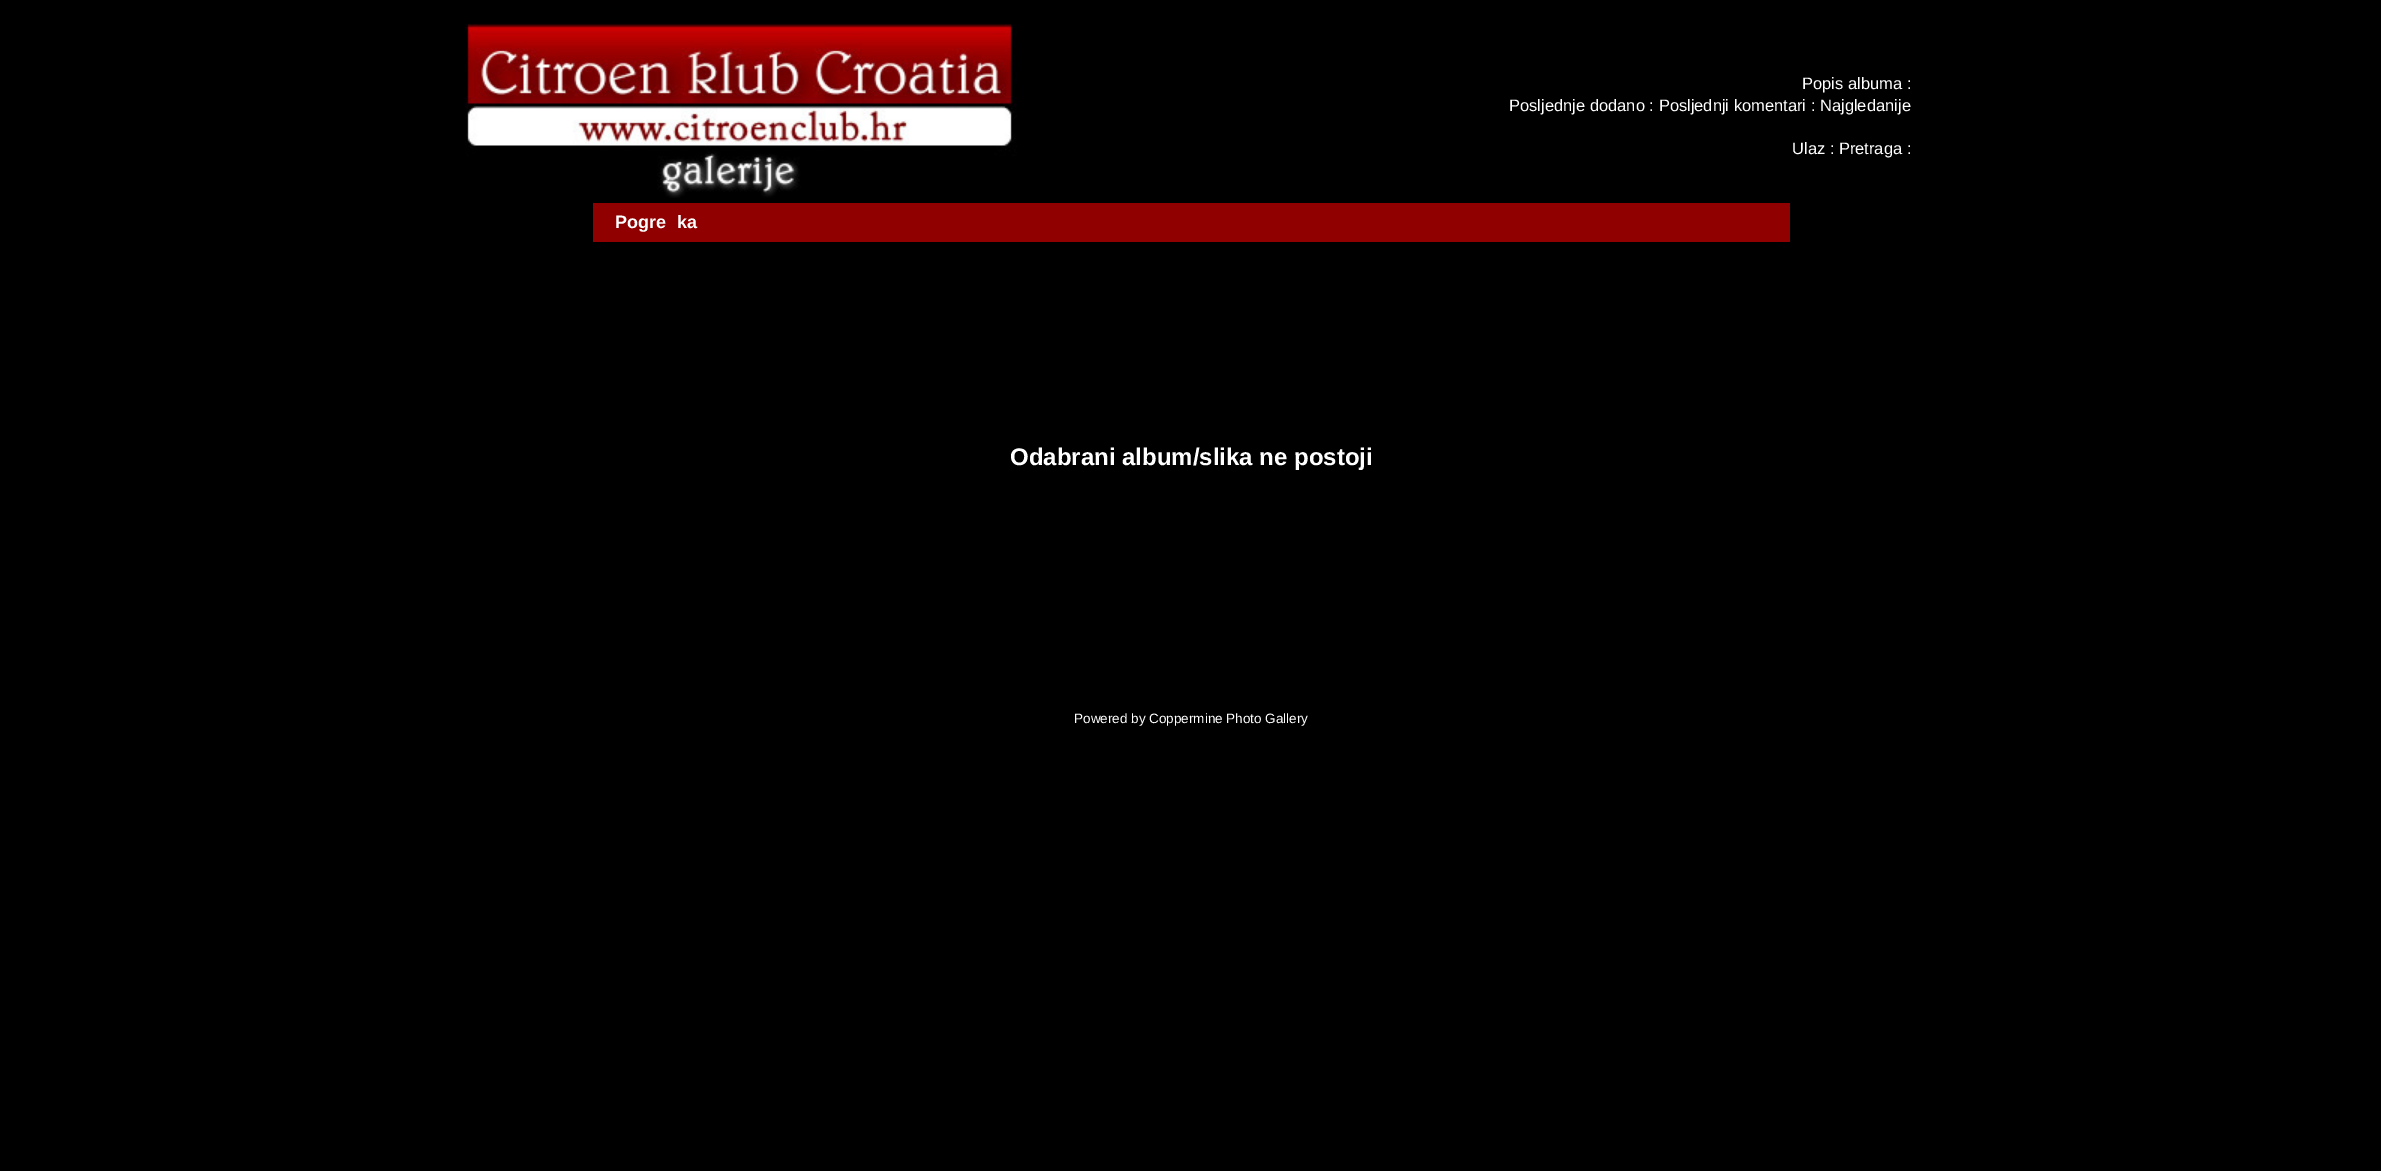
%!PS
<< /PageSize [2381 1171] >> setpagedevice
/rgb { dup -16 bitshift 255 div exch dup -8 bitshift 255 and 255 div exch 255 and 255 div setrgbcolor } def
/font { [ exch dup neg 0 0 3 -1 roll 0 0 ] selectfont } def
/text { moveto show } def
/picture { 5 dict begin { /h /w /y /x /name } { exch def } forall
  gsave x y translate w h scale
  w h 8 [w 0 0 h 0 0] name (r) file false 3 colorimage grestore end } def
0 1171 translate 1 -1 scale
4 setmiterlimit
/s1 { /LiberationSans-Regular 16.5 font 16#FFFFFF rgb } def
/s2 { /LiberationSans-Bold 18 font 16#FFFFFF rgb } def
/s3 { /LiberationSans-Bold 24 font 16#FFFFFF rgb } def
/s4 { /LiberationSans-Regular 13.5 font 16#FFFFFF rgb } def
16#000000 rgb
0 0 2381 1171 rectfill
(pic1.raw) 465 23 552 175 picture
s1
(Popis albuma :) 1802 89 text
(Posljednje dodano : Posljednji komentari : Najgledanije) 1509 111 text
(Ulaz : Pretraga :) 1792 154 text
16#900000 rgb
593 203 1197 39 rectfill
s2
(Pogre) 615 228 text
(ka) 677 228 text
s3
(Odabrani album/slika ne postoji) 1010 465 text
s4
(Powered by Coppermine Photo Gallery) 1074 723 text
showpage
